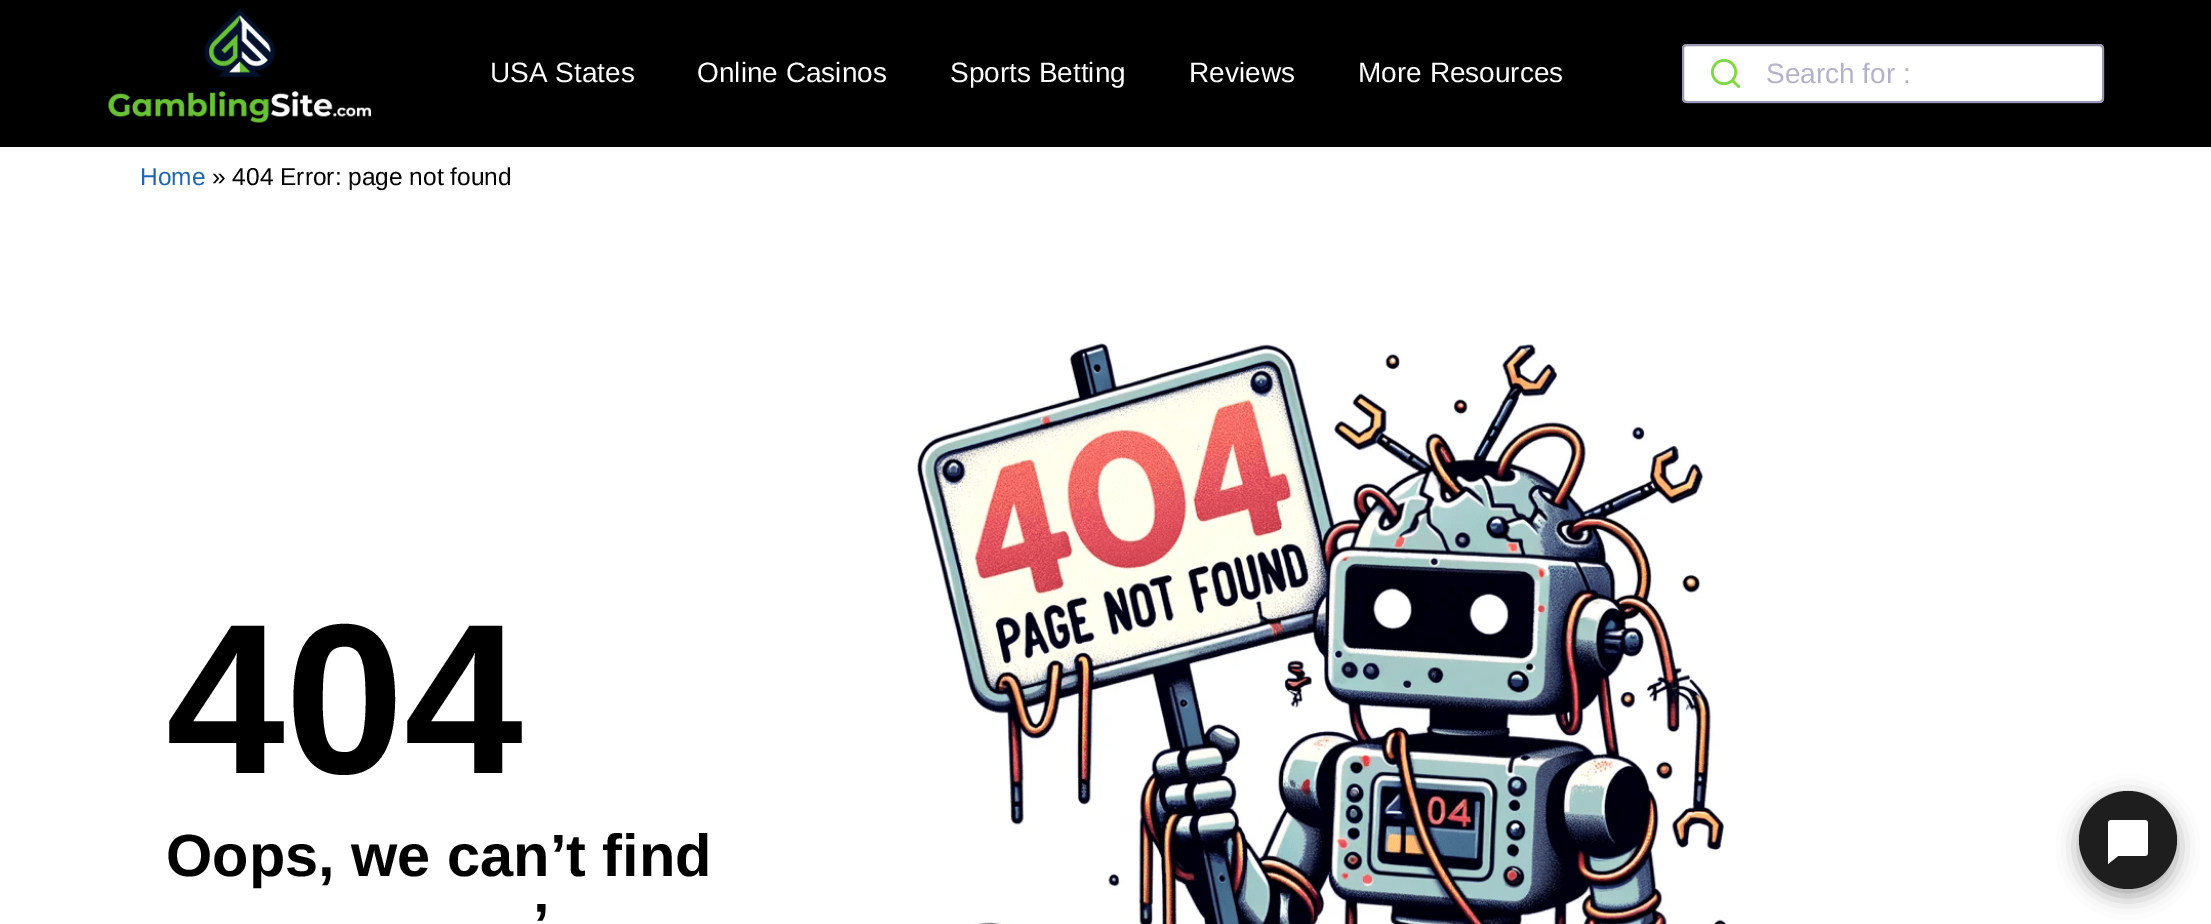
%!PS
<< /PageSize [2211 924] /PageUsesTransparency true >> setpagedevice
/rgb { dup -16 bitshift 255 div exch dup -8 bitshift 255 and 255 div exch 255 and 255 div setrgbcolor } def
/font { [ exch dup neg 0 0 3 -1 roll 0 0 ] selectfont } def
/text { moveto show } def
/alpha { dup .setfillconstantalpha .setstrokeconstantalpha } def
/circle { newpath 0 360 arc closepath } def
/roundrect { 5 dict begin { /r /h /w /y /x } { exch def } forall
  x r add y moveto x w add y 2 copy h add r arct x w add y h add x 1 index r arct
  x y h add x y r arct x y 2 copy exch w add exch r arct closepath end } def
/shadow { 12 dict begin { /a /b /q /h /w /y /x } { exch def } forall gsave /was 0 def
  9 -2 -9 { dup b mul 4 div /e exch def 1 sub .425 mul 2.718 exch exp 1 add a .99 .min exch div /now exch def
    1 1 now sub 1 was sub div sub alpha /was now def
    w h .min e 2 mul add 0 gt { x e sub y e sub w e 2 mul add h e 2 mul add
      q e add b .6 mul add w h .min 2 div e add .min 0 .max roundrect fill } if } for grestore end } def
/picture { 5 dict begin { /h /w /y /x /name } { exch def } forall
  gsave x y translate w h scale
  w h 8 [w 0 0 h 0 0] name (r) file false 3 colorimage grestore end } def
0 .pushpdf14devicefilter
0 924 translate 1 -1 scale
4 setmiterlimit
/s1 { /LiberationSans-Regular 28 font 16#FFFFFF rgb } def
/s2 { /LiberationSans-Regular 28 font 16#B3B2C8 rgb } def
/s3 { /LiberationSans-Regular 24.5 font 16#2364AA rgb } def
/s4 { /LiberationSans-Regular 24.5 font 16#000000 rgb } def
/s5 { /LiberationSans-Bold 214 font 16#000000 rgb } def
/s6 { /LiberationSans-Bold 59.5 font 16#000000 rgb } def
16#FFFFFF rgb
0 0 2211 924 rectfill
16#000000 rgb
0 0 2211 147 rectfill
(pic1.raw) 108 8 263 115 picture
s1
(USA States) 490 82 text
(Online Casinos) 697 82 text
(Sports Betting) 950 82 text
(Reviews) 1189 82 text
(More Resources) 1358 82 text
1682 44 422 59 5 roundrect fill
0.8 alpha
16#807EA3 rgb
2 setlinewidth
1683 45 420 57 4 roundrect stroke
1 alpha
(pic2.raw) 1710 58 31 31 picture
s2
(Search for :) 1766 83 text
s3
(Home) 140 185 text
s4
(» 404 Error: page not found) 212 185 text
s5
(404) 166 773 text
s6
(Oops, we can’t find) 166 876 text
(’) 533 945 text
(pic3.raw) 916 343 811 581 picture
2079 798 98 98 49 10.5 0.35 shadow
16#1E1E1E rgb
2128 840 49 circle fill
16#FFFFFF rgb
2112 820 moveto 2144 820 lineto 2147 820 2148 821 2148 824 curveto 2148 852 lineto 2148 855 2147 856 2144 856 curveto 2118 856 lineto 2108 864 lineto 2108 824 lineto 2108 821 2109 820 2112 820 curveto closepath fill
.poppdf14devicefilter showpage
